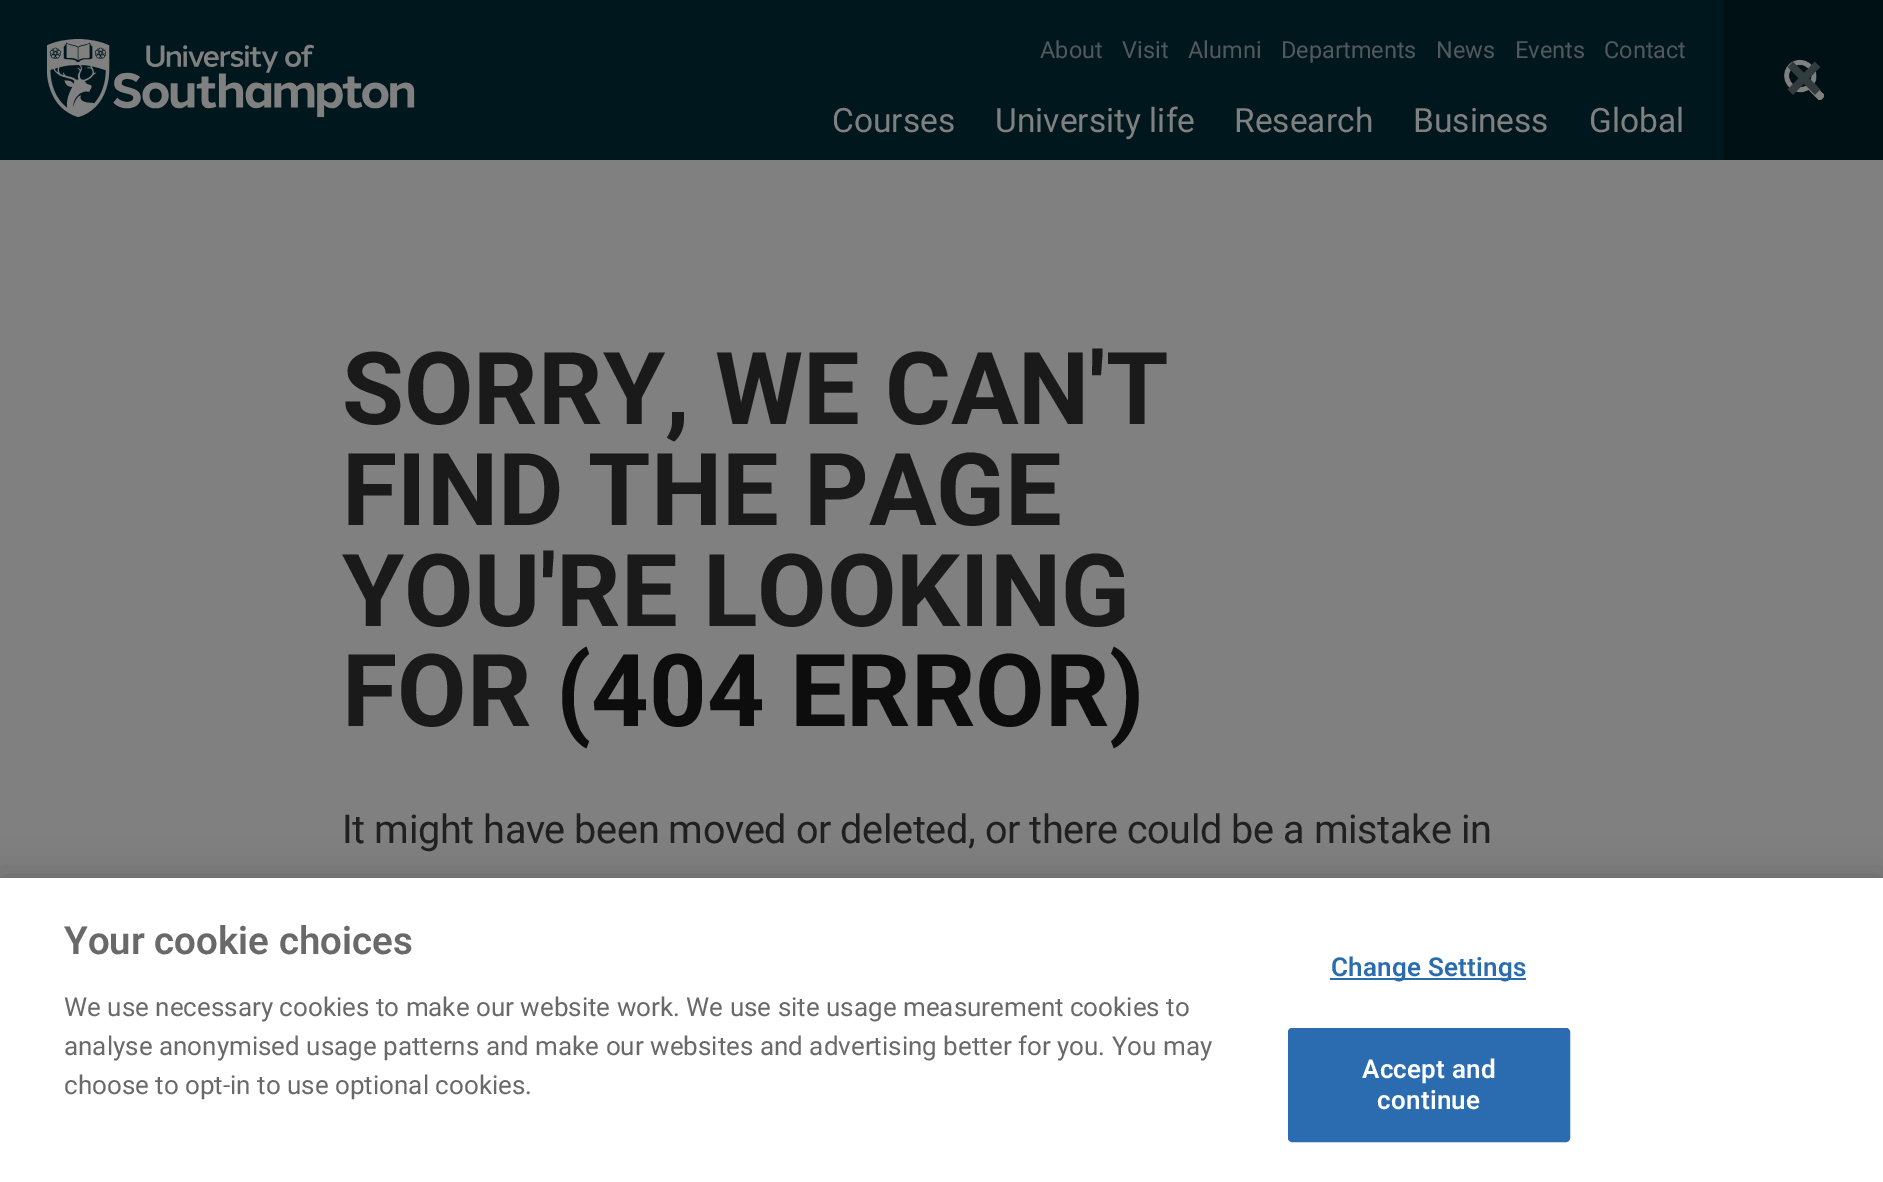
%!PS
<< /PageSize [1883 1182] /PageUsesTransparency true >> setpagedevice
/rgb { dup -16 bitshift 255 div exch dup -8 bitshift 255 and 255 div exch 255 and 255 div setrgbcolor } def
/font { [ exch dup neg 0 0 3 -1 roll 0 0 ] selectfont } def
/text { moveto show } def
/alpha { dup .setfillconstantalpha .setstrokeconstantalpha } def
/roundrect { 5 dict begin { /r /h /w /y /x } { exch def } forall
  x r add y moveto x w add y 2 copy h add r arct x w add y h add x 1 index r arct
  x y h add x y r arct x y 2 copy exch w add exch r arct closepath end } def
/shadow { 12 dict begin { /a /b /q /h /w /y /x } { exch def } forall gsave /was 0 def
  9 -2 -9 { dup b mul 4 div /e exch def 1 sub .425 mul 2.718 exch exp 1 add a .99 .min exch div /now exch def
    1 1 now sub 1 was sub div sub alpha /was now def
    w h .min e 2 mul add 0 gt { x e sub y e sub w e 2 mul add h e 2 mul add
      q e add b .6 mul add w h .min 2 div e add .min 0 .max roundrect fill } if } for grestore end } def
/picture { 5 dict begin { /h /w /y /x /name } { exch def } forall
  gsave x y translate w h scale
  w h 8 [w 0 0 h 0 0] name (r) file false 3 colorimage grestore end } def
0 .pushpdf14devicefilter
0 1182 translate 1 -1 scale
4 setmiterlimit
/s1 { /Roboto-Regular 23.5 font 16#52585B rgb } def
/s2 { /Roboto-Regular 33.5 font 16#808080 rgb } def
/s3 { /Roboto-SemiBold 72 font 16#323C3F rgb } def
/s4 { /Roboto-Bold 100.75 font 16#1A1A1A rgb } def
/s5 { /Roboto-Bold 100.75 font 16#0D0D0D rgb } def
/s6 { /Roboto-SemiBold 38.5 font 16#696969 rgb } def
/s7 { /Roboto-Regular 26 font 16#696969 rgb } def
16#00171E rgb
0 0 1883 1182 rectfill
(pic1.raw) 47 39 368 79 picture
s1
(About) 1040 58 text
(Visit) 1122 58 text
(Alumni) 1188 58 text
(Departments) 1281 58 text
(News) 1436 58 text
(Events) 1515 58 text
(Contact) 1604 58 text
s2
(Courses) 832 132 text
(University life) 995 132 text
(Research) 1234 132 text
(Business) 1413 132 text
(Global) 1589 132 text
16#001116 rgb
1724 0 159 160 rectfill
(pic2.raw) 1784 60 40 40 picture
s3
(×) 1785 102 text
16#808080 rgb
0 160 1883 718 rectfill
s4
(SORRY, WE CAN'T) 342 424 text
(FIND THE PAGE) 342 525 text
(YOU'RE LOOKING) 342 626 text
(FOR) 342 726 text
s5
(\(404 ERROR\)) 556 726 text
/Roboto-Regular 39.6 font
16#202020 rgb
342 843 moveto -0.4 0 (It might have been moved or deleted, or there could be a mistake in) ashow
16#000000 rgb
0 878 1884 304 0 18 0.2 shadow
16#FFFFFF rgb
0 878 1883 304 rectfill
s6
(Your cookie choices) 64 954 text
s7
(We use necessary cookies to make our website work. We use site usage measurement cookies to) 64 1016 text
(analyse anonymised usage patterns and make our websites and advertising better for you. You may) 64 1055 text
(choose to opt-in to use optional cookies.) 64 1094 text
16#2B6CB1 rgb
1330 978 196 2 rectfill
/Roboto-SemiBold 26 font
1331 976 moveto 0.25 0 (Change Settings) ashow
1289 1029 280 112 3 roundrect gsave fill grestore
2 setlinewidth
stroke
16#FFFFFF rgb
1362 1078 moveto 0.25 0 (Accept and) ashow
1377 1109 moveto 0.25 0 (continue) ashow
.poppdf14devicefilter showpage
